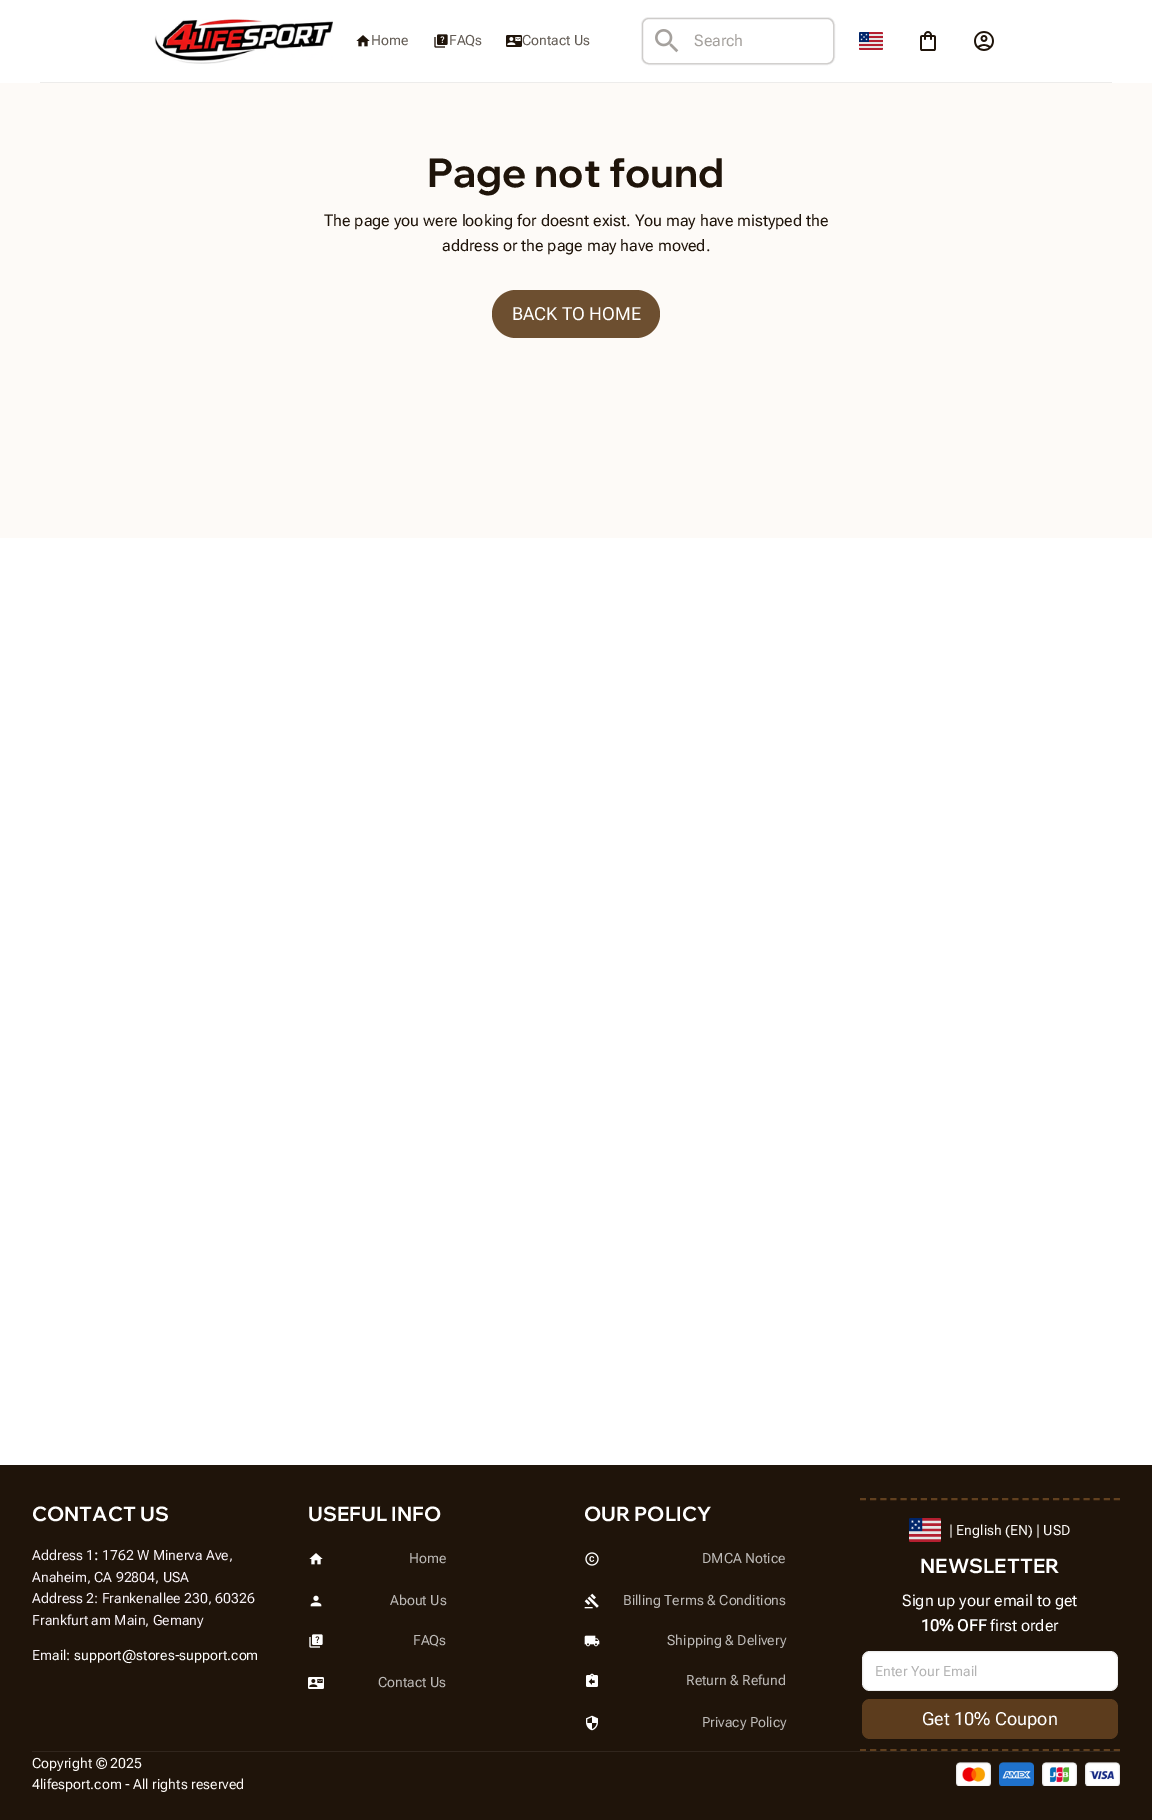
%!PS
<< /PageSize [1152 1820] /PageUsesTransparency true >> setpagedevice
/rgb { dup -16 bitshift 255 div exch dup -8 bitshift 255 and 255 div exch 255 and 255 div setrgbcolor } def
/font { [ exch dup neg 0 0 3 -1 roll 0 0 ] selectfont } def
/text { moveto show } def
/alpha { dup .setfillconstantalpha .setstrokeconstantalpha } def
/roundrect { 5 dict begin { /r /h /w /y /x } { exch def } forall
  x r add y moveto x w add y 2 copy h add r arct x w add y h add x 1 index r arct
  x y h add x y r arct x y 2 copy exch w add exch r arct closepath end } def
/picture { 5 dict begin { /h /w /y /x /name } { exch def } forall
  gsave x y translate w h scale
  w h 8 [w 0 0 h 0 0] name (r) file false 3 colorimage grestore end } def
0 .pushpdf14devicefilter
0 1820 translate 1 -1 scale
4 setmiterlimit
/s1 { /RobotoFlex-Regular 14 font 16#625B54 rgb } def
/s2 { /RobotoFlex-Regular 16 font 16#A5A19D rgb } def
/s3 { /WixMadeforDisplay-Bold 40 font 16#1F140A rgb } def
/s4 { /RobotoFlex-Regular 16 font 16#1F140A rgb } def
/s5 { /RobotoFlex-Regular 18 font 16#FFFFFF rgb } def
/s6 { /WixMadeforDisplay-Bold 20 font 16#FFFFFF rgb } def
/s7 { /RobotoFlex-Regular 14 font 16#F8F2F7 rgb } def
/s8 { /RobotoFlex-Bold 14 font 16#F8F2F7 rgb } def
/s9 { /RobotoFlex-Regular 14 font 16#FFFFFF rgb } def
/s10 { /RobotoFlex-Regular 14 font 16#BCB9B6 rgb } def
/s11 { /RobotoFlex-Regular 14 font 16#FDFAF7 rgb } def
/s12 { /RobotoFlex-Regular 16 font 16#FFFFFF rgb } def
/s13 { /RobotoFlex-Bold 16 font 16#FFFFFF rgb } def
/s14 { /RobotoFlex-Regular 14 font 16#B3B3B3 rgb } def
16#FFFFFF rgb
0 0 1152 1820 rectfill
16#EDECEB rgb
40 82 1072 1 rectfill
(pic1.raw) 154 19 179 45 picture
(pic2.raw) 356 35 14 12 picture
s1
(Home) 371 45 text
(pic3.raw) 434 34 14 14 picture
(FAQs) 449 45 text
(pic4.raw) 506 35 16 12 picture
(Contact Us) 522 45 text
16#EDEDED rgb
641.5 17.5 193 47 7.5 roundrect stroke
0.2 alpha
16#1F140A rgb
642.5 18.5 191 45 6.5 roundrect stroke
1 alpha
(pic5.raw) 655 29 24 24 picture
s2
(Search) 694 46 text
(pic6.raw) 859 32 24 18 picture
(pic7.raw) 920 31 16 20 picture
(pic8.raw) 974 31 20 20 picture
16#FDFAF7 rgb
0 83 1152 455 rectfill
s3
(Page not found) 427 187 text
s4
(The page you were looking for doesnt exist. You may have mistyped the) 324 226 text
(address or the page may have moved.) 442 251 text
16#6D4F30 rgb
492 290 168 48 24 roundrect fill
s5
(BACK TO HOME) 512 320 text
16#1F140A rgb
0 1465 1152 355 rectfill
s6
(CONTACT US) 32 1521 text
s7
(Address 1) 32 1560 text
s8
(:) 94 1560 text
s7
(1762 W Minerva Ave,) 102 1560 text
(Anaheim, CA 92804, USA) 32 1582 text
(Address 2: Frankenallee 230, 60326) 32 1603 text
(Frankfurt am Main, Gemany) 32 1625 text
(Em) 32 1660 text
s9
(ail: support@stores-support.com) 52 1660 text
s6
(USEFUL INFO) 308 1521 text
(pic9.raw) 309 1553 14 12 picture
s10
(Home) 409 1563 text
(pic10.raw) 310 1595 12 12 picture
(About Us) 390 1605 text
(pic11.raw) 309 1634 14 14 picture
(FAQs) 413 1645 text
(pic12.raw) 308 1677 16 12 picture
(Contact Us) 378 1687 text
s6
(OUR POLICY) 584 1521 text
(pic13.raw) 585 1552 14 14 picture
s10
(DMCA Notice) 702 1563 text
(pic14.raw) 584 1593 15 16 picture
(Billing Terms & Conditions) 623 1605 text
(pic15.raw) 584 1635 16 12 picture
(Shipping & Delivery) 667 1645 text
(pic16.raw) 586 1673 12 14 picture
(Return & Refund) 686 1685 text
(pic17.raw) 586 1715 12 16 picture
(Privacy Policy) 702 1727 text
16#61401F rgb
2 setlinewidth
[6 4.16] 0 setdash
860 1499 moveto 1120 1499 lineto stroke
860 1750 moveto 1120 1750 lineto stroke
(pic18.raw) 909 1518 32 24 picture
s11
(| English \(EN\) | USD) 949 1535 text
s6
(NEWSLETTER) 920 1573 text
s12
(Sign up your email to get) 902 1606 text
s13
(10% OFF) 921 1631 text
s12
(first order) 990 1631 text
862 1651 256 40 8 roundrect fill
0.1 alpha
16#4D4D4D rgb
1 setlinewidth
[] 0 setdash
862.5 1651.5 255 39 7.5 roundrect stroke
1 alpha
s14
(Enter Your Email) 875 1676 text
16#5C3C1D rgb
862 1699 256 40 8 roundrect fill
s5
(Get 10% Coupon) 922 1725 text
16#31261D rgb
32 1751 1088 1 rectfill
s11
(Copyright © 2025) 32 1768 text
(4lifesport.com) 32 1789 text
(- All rights reserved) 125 1789 text
(pic19.raw) 956 1762 35 24 picture
(pic20.raw) 999 1762 35 24 picture
(pic21.raw) 1042 1762 35 24 picture
(pic22.raw) 1085 1762 35 24 picture
.poppdf14devicefilter showpage
